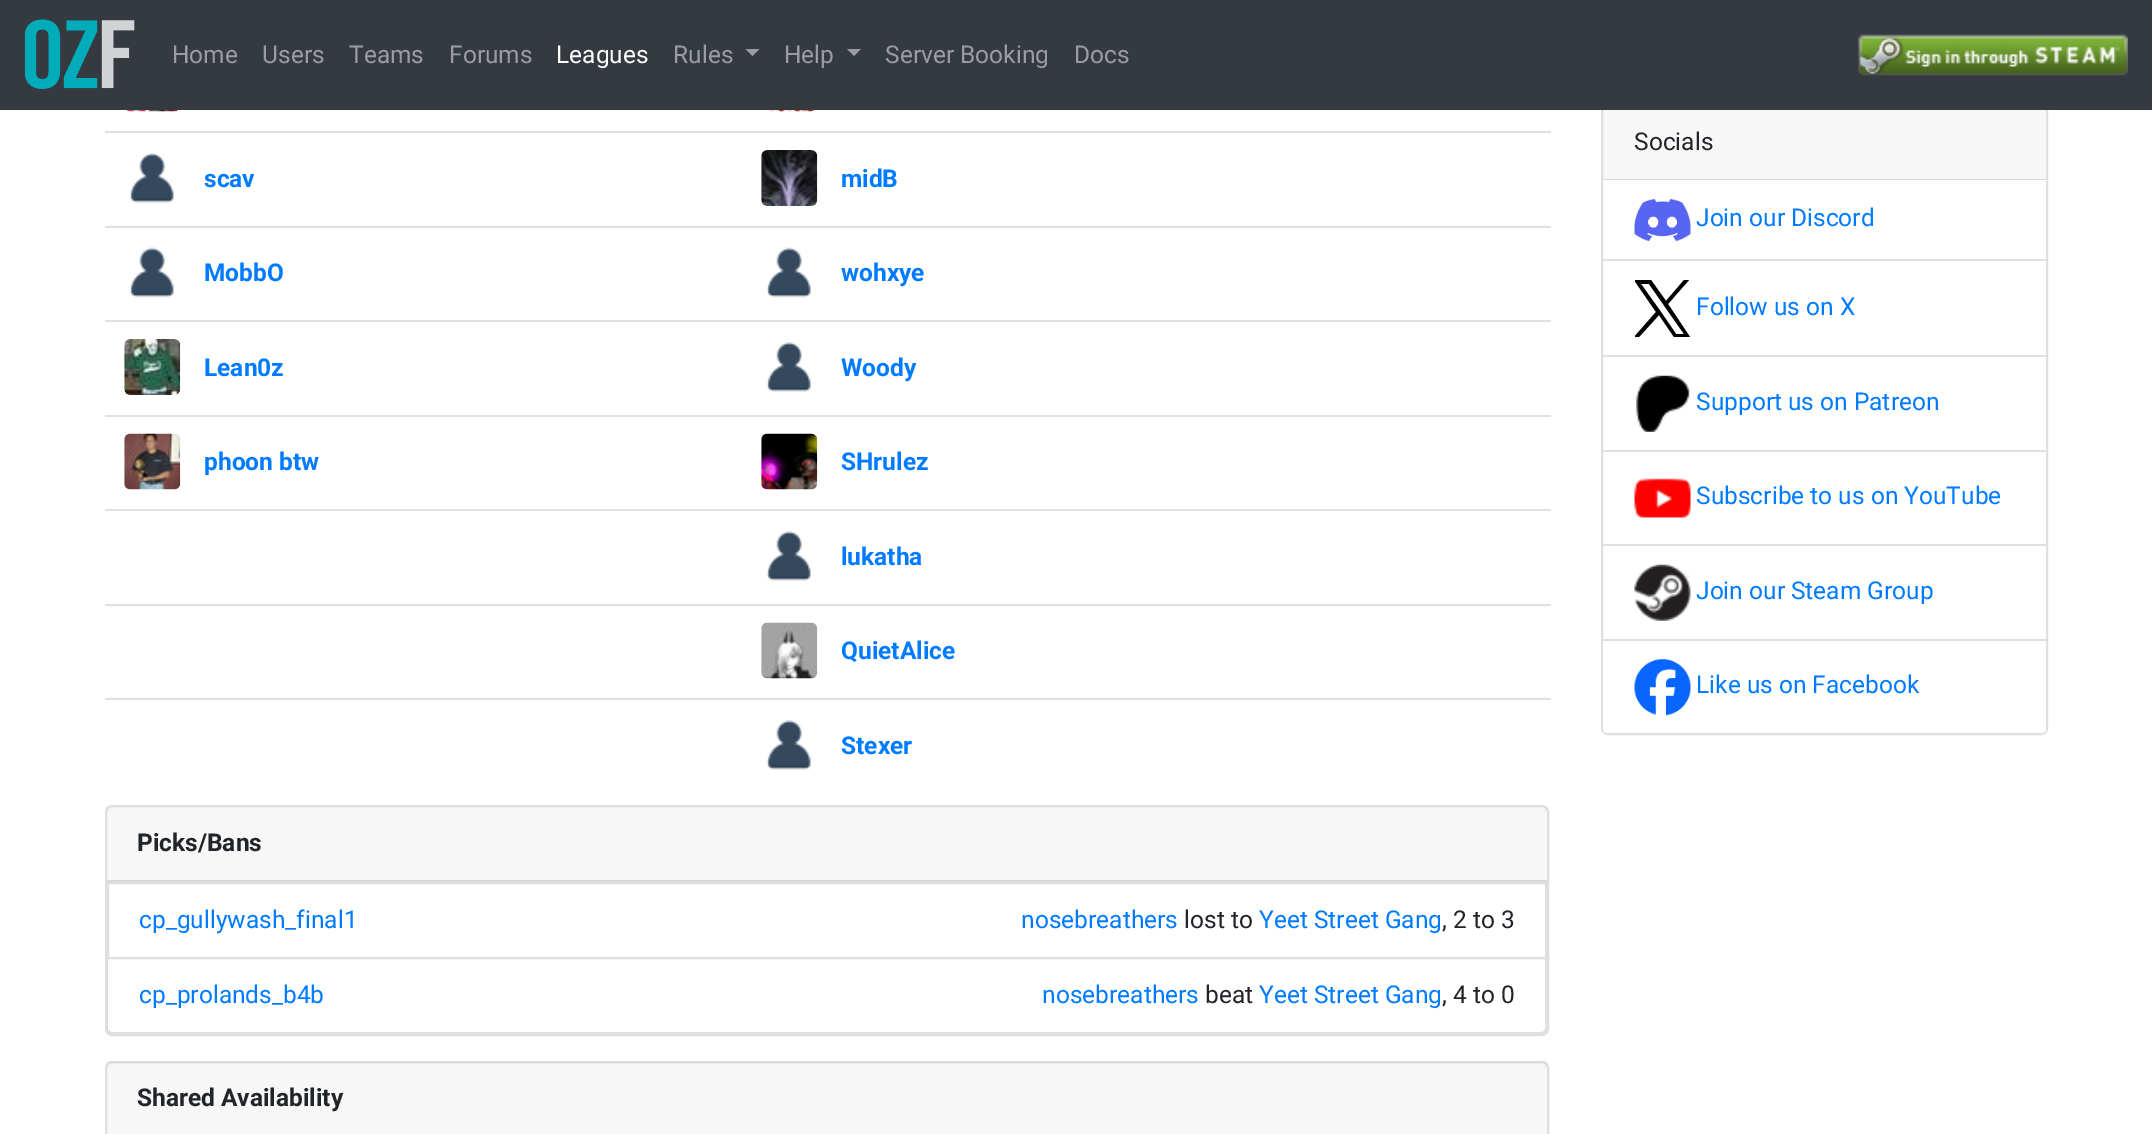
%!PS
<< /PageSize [2152 1134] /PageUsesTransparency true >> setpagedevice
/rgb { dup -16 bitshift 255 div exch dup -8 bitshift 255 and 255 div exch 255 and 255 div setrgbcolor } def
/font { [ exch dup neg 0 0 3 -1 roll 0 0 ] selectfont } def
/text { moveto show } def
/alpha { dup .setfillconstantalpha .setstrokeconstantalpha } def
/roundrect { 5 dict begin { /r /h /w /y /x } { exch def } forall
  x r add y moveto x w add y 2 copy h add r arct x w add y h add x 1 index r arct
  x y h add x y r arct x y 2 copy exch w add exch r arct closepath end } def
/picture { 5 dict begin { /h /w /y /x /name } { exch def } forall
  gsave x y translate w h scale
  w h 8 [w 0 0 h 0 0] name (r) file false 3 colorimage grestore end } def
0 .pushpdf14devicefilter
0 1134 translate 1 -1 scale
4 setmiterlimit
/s1 { /Roboto-Regular 24.5 font 16#9A9DA0 rgb } def
/s2 { /Roboto-Regular 24.5 font 16#FFFFFF rgb } def
/s3 { /Roboto-Bold 24.5 font 16#007BFF rgb } def
/s4 { /Roboto-Bold 24.5 font 16#212529 rgb } def
/s5 { /Roboto-Regular 24.5 font 16#007BFF rgb } def
/s6 { /Roboto-Regular 24.5 font 16#212529 rgb } def
16#FFFFFF rgb
0 0 2152 1134 rectfill
16#DFDFDF rgb
2 setlinewidth
1602 104 445 630 6 roundrect stroke
16#343A40 rgb
0 0 2152 110 rectfill
(pic1.raw) 25 19 110 70 picture
s1
(Home) 172 63 text
(Users) 262 63 text
(Teams) 349 63 text
(Forums) 449 63 text
s2
(Leagues) 556 63 text
s1
(Rules) 673 63 text
745.5 49 moveto 759.5 49 lineto 752.5 56 lineto closepath fill
(Help) 784 63 text
847 49 moveto 861 49 lineto 854 56 lineto closepath fill
(Server Booking) 885 63 text
(Docs) 1074 63 text
(pic2.raw) 1858 34 270 42 picture
(pic3.raw) 126 110 52 2 picture
(pic4.raw) 763 110 52 2 picture
(pic5.raw) 129 153 45 50 picture
s3
(scav) 204 187 text
16#DEE2E6 rgb
105 131 1446 2 rectfill
(pic6.raw) 761 150 57 56 picture
s3
(midB) 841 187 text
(pic7.raw) 129 247 45 51 picture
(MobbO) 204 281 text
16#DEE2E6 rgb
105 226 1446 2 rectfill
(pic7.raw) 766 247 45 51 picture
s3
(wohxye) 841 281 text
(pic8.raw) 124 339 57 56 picture
(Lean0z) 204 376 text
16#DEE2E6 rgb
105 320 1446 2 rectfill
(pic5.raw) 766 342 45 50 picture
s3
(Woody) 841 376 text
(pic9.raw) 124 433 57 57 picture
(phoon btw) 204 470 text
16#DEE2E6 rgb
105 415 1446 2 rectfill
(pic10.raw) 761 433 57 57 picture
s3
(SHrulez) 841 470 text
16#DEE2E6 rgb
105 509 1446 2 rectfill
(pic5.raw) 766 531 45 50 picture
s3
(lukatha) 841 565 text
16#DEE2E6 rgb
105 604 1446 2 rectfill
(pic11.raw) 761 622 57 57 picture
s3
(QuietAlice) 841 659 text
16#DEE2E6 rgb
105 698 1446 2 rectfill
(pic5.raw) 766 720 45 50 picture
s3
(Stexer) 841 754 text
16#DFDFDF rgb
106 806 1442 229 6 roundrect stroke
0.03 alpha
16#000000 rgb
107 807 1440 73 rectfill
1 alpha
16#D8D8D8 rgb
107 880 1440 2 rectfill
s4
(Picks/Bans) 137 851 text
16#DFDFDF rgb
108 883 1438 75 rectstroke
s5
(cp_gullywash_final1) 139 928 text
(nosebreathers) 1021 928 text
s6
(lost to) 1184 928 text
s5
(Yeet Street Gang) 1259 928 text
s6
(, 2 to 3) 1442 928 text
0.12 alpha
16#000000 rgb
107 959 moveto 1547 959 lineto 1547 1028 lineto 1547 1032 1544 1034 1541 1034 curveto 113 1034 lineto 109 1034 107 1032 107 1028 curveto closepath 108 959 moveto 1545 959 lineto 1545 1028 lineto 1545 1031 1543 1032 1541 1032 curveto 113 1032 lineto 110 1032 108 1031 108 1028 curveto closepath eofill
1 alpha
s5
(cp_prolands_b4b) 139 1003 text
(nosebreathers) 1042 1003 text
s6
(beat) 1205 1003 text
s5
(Yeet Street Gang) 1259 1003 text
s6
(, 4 to 0) 1442 1003 text
16#DFDFDF rgb
106 1062 1442 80 6 roundrect stroke
0.03 alpha
16#000000 rgb
107 1062 1440 72 rectfill
1 alpha
s4
(Shared Availability) 137 1106 text
0.03 alpha
16#000000 rgb
1603 110 443 70 rectfill
0.12 alpha
1603 179 443 1 rectfill
1 alpha
s6
(Socials) 1634 150 text
16#DFDFDF rgb
1603 259 443 2 rectfill
(pic12.raw) 1634 199 57 42 picture
s5
(Join our Discord) 1696 226 text
16#DFDFDF rgb
1603 355 443 2 rectfill
s5
(Follow us on X) 1696 315 text
gsave
1635 280 56 58 rectclip
16#000000 rgb
1668 304 moveto 1689 280 lineto 1684 280 lineto 1666 301 lineto 1651 280 lineto 1634 280 lineto 1656 312 lineto 1634 337 lineto 1639 337 lineto 1659 315 lineto 1674 337 lineto 1690 337 lineto closepath 1661 312 moveto 1641 284 lineto 1649 284 lineto 1684 334 lineto 1676 334 lineto closepath fill
grestore
16#DFDFDF rgb
1603 450 443 2 rectfill
(pic13.raw) 1635 375 55 57 picture
s5
(Support us on Patreon) 1696 410 text
16#DFDFDF rgb
1603 544 443 2 rectfill
(pic14.raw) 1634 478 57 40 picture
s5
(Subscribe to us on YouTube) 1696 504 text
16#DFDFDF rgb
1603 639 443 2 rectfill
(pic15.raw) 1634 564 57 57 picture
s5
(Join our Steam Group) 1696 599 text
16#FFFFFF rgb
1603 641 moveto 2046 641 lineto 2046 729 lineto 2046 731 2044 733 2042 733 curveto 1607 733 lineto 1605 733 1603 731 1603 729 curveto closepath fill
(pic16.raw) 1634 659 57 57 picture
s5
(Like us on Facebook) 1696 693 text
.poppdf14devicefilter showpage
